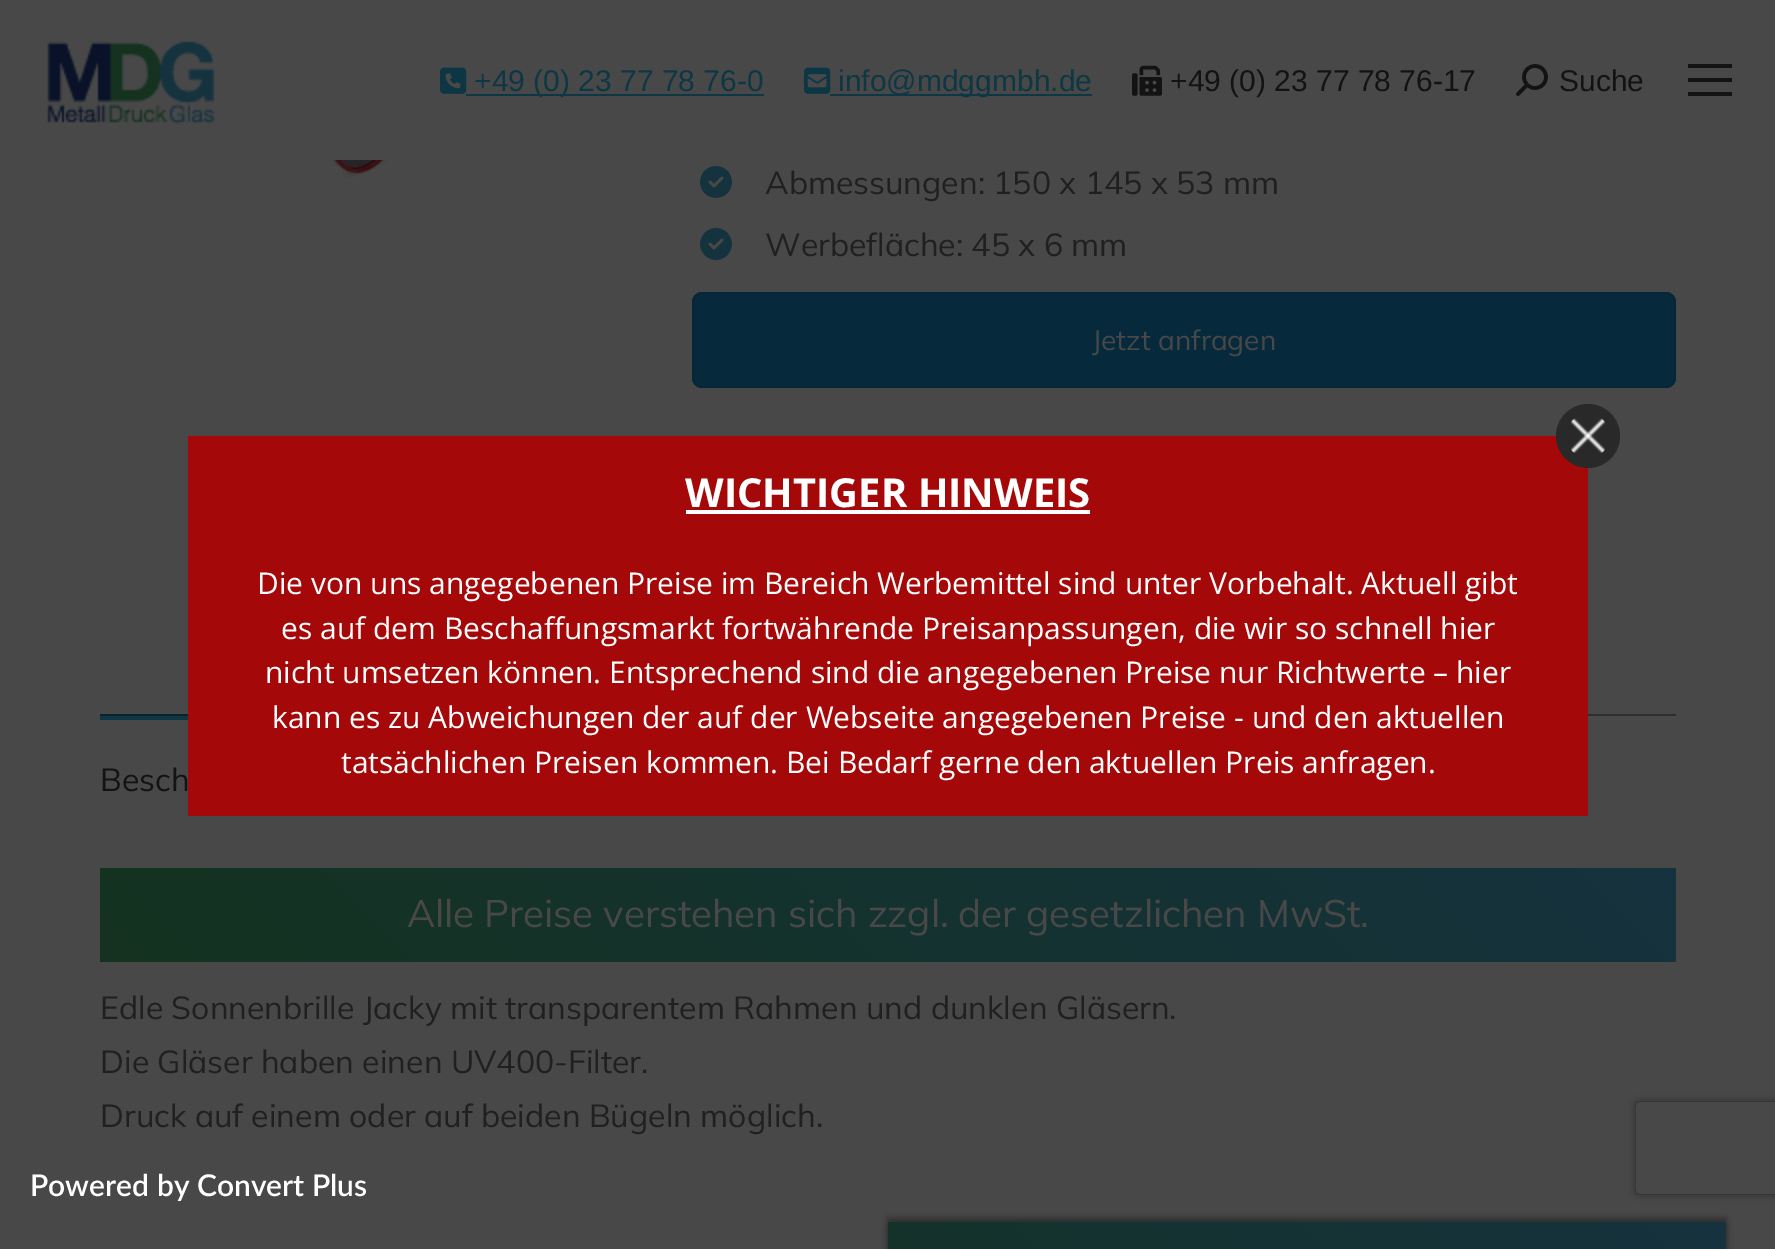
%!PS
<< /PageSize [1775 1249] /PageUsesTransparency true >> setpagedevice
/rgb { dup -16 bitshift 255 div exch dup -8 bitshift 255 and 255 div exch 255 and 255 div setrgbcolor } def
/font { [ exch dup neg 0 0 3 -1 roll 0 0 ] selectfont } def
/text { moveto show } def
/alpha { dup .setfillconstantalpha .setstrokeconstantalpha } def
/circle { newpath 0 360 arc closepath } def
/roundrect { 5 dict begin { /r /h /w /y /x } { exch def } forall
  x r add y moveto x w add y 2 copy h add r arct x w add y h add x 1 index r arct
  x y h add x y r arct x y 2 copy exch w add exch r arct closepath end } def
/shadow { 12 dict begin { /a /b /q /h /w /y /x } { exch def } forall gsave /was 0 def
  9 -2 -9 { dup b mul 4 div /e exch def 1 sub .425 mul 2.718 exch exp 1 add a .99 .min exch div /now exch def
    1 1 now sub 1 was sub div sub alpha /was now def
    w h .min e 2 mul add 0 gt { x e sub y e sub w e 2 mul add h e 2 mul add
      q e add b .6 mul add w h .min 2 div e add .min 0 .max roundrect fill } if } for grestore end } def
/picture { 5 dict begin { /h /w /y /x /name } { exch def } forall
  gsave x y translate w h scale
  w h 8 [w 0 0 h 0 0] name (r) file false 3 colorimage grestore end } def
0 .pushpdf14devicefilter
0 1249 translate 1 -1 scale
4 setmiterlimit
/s1 { /LiberationSans-Regular 30 font 16#0D3744 rgb } def
/s2 { /LiberationSans-Regular 30 font 16#131313 rgb } def
/s3 { /Mulish-Regular 32 font 16#202020 rgb } def
/s4 { /Mulish-Regular 28 font 16#484848 rgb } def
/s5 { /Mulish-Regular 32 font 16#131313 rgb } def
/s6 { /Mulish-Regular 38.4 font 16#484848 rgb } def
/s7 { /OpenSans-Bold 40 font 16#FFFFFF rgb } def
/s8 { /OpenSans-Regular 30 font 16#FFFFFF rgb } def
/s9 { /Lato-SemiBold 30 font 16#FFFFFF rgb } def
16#484848 rgb
0 0 1775 1249 rectfill
(pic1.raw) 47 41 168 84 picture
(pic2.raw) 440 67 27 27 picture
16#0D3744 rgb
466 94 298 2 rectfill
s1
(+49 \(0\) 23 77 78 76-0) 474 91 text
(pic3.raw) 804 67 27 27 picture
830 94 262 2 rectfill
(info@mdggmbh.de) 838 91 text
(pic4.raw) 1132 65 30 31 picture
s2
(+49 \(0\) 23 77 78 76-17) 1170 91 text
(pic5.raw) 1516 64 32 32 picture
(Suche) 1559 91 text
1688 64 44 4 rectfill
1688 78 44 4 rectfill
1688 92 44 4 rectfill
(pic6.raw) 198 160 287 19 picture
(pic7.raw) 700 166 32 32 picture
s3
(Abmessungen: 150 x 145 x 53 mm) 765 194 text
(pic7.raw) 700 228 32 32 picture
(Werbefläche: 45 x 6 mm) 765 256 text
16#06293B rgb
692 292 984 96 10 roundrect fill
0.1 alpha
16#060606 rgb
2 setlinewidth
693 293 982 94 9 roundrect stroke
1 alpha
s4
(Jetzt anfragen) 1092 350 text
gsave 100 714 moveto 188 714 lineto 188 720 lineto 100 720 lineto closepath clip newpath
<< /ShadingType 2 /ColorSpace /DeviceRGB /Coords [149 665 253 769] /Extend [true true] /Function << /FunctionType 3 /Domain [0 1] /Functions [<< /FunctionType 2 /Domain [0 1] /C0 [0.051 0.216 0.267] /C1 [0.051 0.216 0.267] /N 1 >> << /FunctionType 2 /Domain [0 1] /C0 [0.051 0.216 0.267] /C1 [0.082 0.251 0.196] /N 1 >>] /Bounds [0.3] /Encode [0 1 0 1] >> >> shfill grestore
0.41 alpha
16#080808 rgb
100 714 1576 2 rectfill
1 alpha
s5
(Besch) 100 791 text
gsave 100 868 moveto 1676 868 lineto 1676 962 lineto 100 962 lineto closepath clip newpath
<< /ShadingType 2 /ColorSpace /DeviceRGB /Coords [471 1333 1306 498] /Extend [true true] /Function << /FunctionType 2 /Domain [0 1] /C0 [0.078 0.196 0.122] /C1 [0.082 0.196 0.247] /N 1 >> >> shfill grestore
s6
(Alle Preise verstehen sich zzgl. der gesetzlichen MwSt.) 407 927 text
s3
(Edle Sonnenbrille Jacky mit transparentem Rahmen und dunklen Gläsern.) 100 1019 text
(Die Gläser haben einen UV400-Filter.) 100 1073 text
(Druck auf einem oder auf beiden Bügeln möglich.) 100 1127 text
16#2E2E2E rgb
888 1226 838 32 0 3 1 shadow
888 1218 838 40 0 3 1 shadow
gsave 888 1222 moveto 1726 1222 lineto 1726 1249 lineto 888 1249 lineto closepath clip newpath
<< /ShadingType 2 /ColorSpace /DeviceRGB /Coords [971 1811 1643 1139] /Extend [true true] /Function << /FunctionType 2 /Domain [0 1] /C0 [0.078 0.196 0.122] /C1 [0.082 0.196 0.247] /N 1 >> >> shfill grestore
16#A50808 rgb
188 436 1400 380 rectfill
16#292929 rgb
1588 436 32 circle fill
(pic8.raw) 1571 418 34 35 picture
s7
(WICHTIGER HINWEIS) 685 507 text
686 510 404 4 rectfill
s8
(Die von uns angegebenen Preise im Bereich Werbemittel sind unter Vorbehalt. Aktuell gibt) 257 594 text
(es auf dem Beschaffungsmarkt fortwährende Preisanpassungen, die wir so schnell hier) 281 639 text
(nicht umsetzen können. Entsprechend sind die angegebenen Preise nur Richtwerte – hier) 265 683 text
(kann es zu Abweichungen der auf der Webseite angegebenen Preise - und den aktuellen) 272 728 text
(tatsächlichen Preisen kommen. Bei Bedarf gerne den aktuellen Preis anfragen.) 341 773 text
s9
(Powered by Convert Plus) 30 1196 text
gsave
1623 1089 moveto 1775 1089 lineto 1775 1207 lineto 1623 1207 lineto closepath 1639 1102 moveto 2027 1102 lineto 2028.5 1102 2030 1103.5 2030 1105 curveto 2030 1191 lineto 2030 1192.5 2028.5 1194 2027 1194 curveto 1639 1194 lineto 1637.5 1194 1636 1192.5 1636 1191 curveto 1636 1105 lineto 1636 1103.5 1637.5 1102 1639 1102 curveto closepath eoclip newpath
16#272727 rgb
1636 1102 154 92 3 4 1 shadow
grestore
.poppdf14devicefilter showpage
